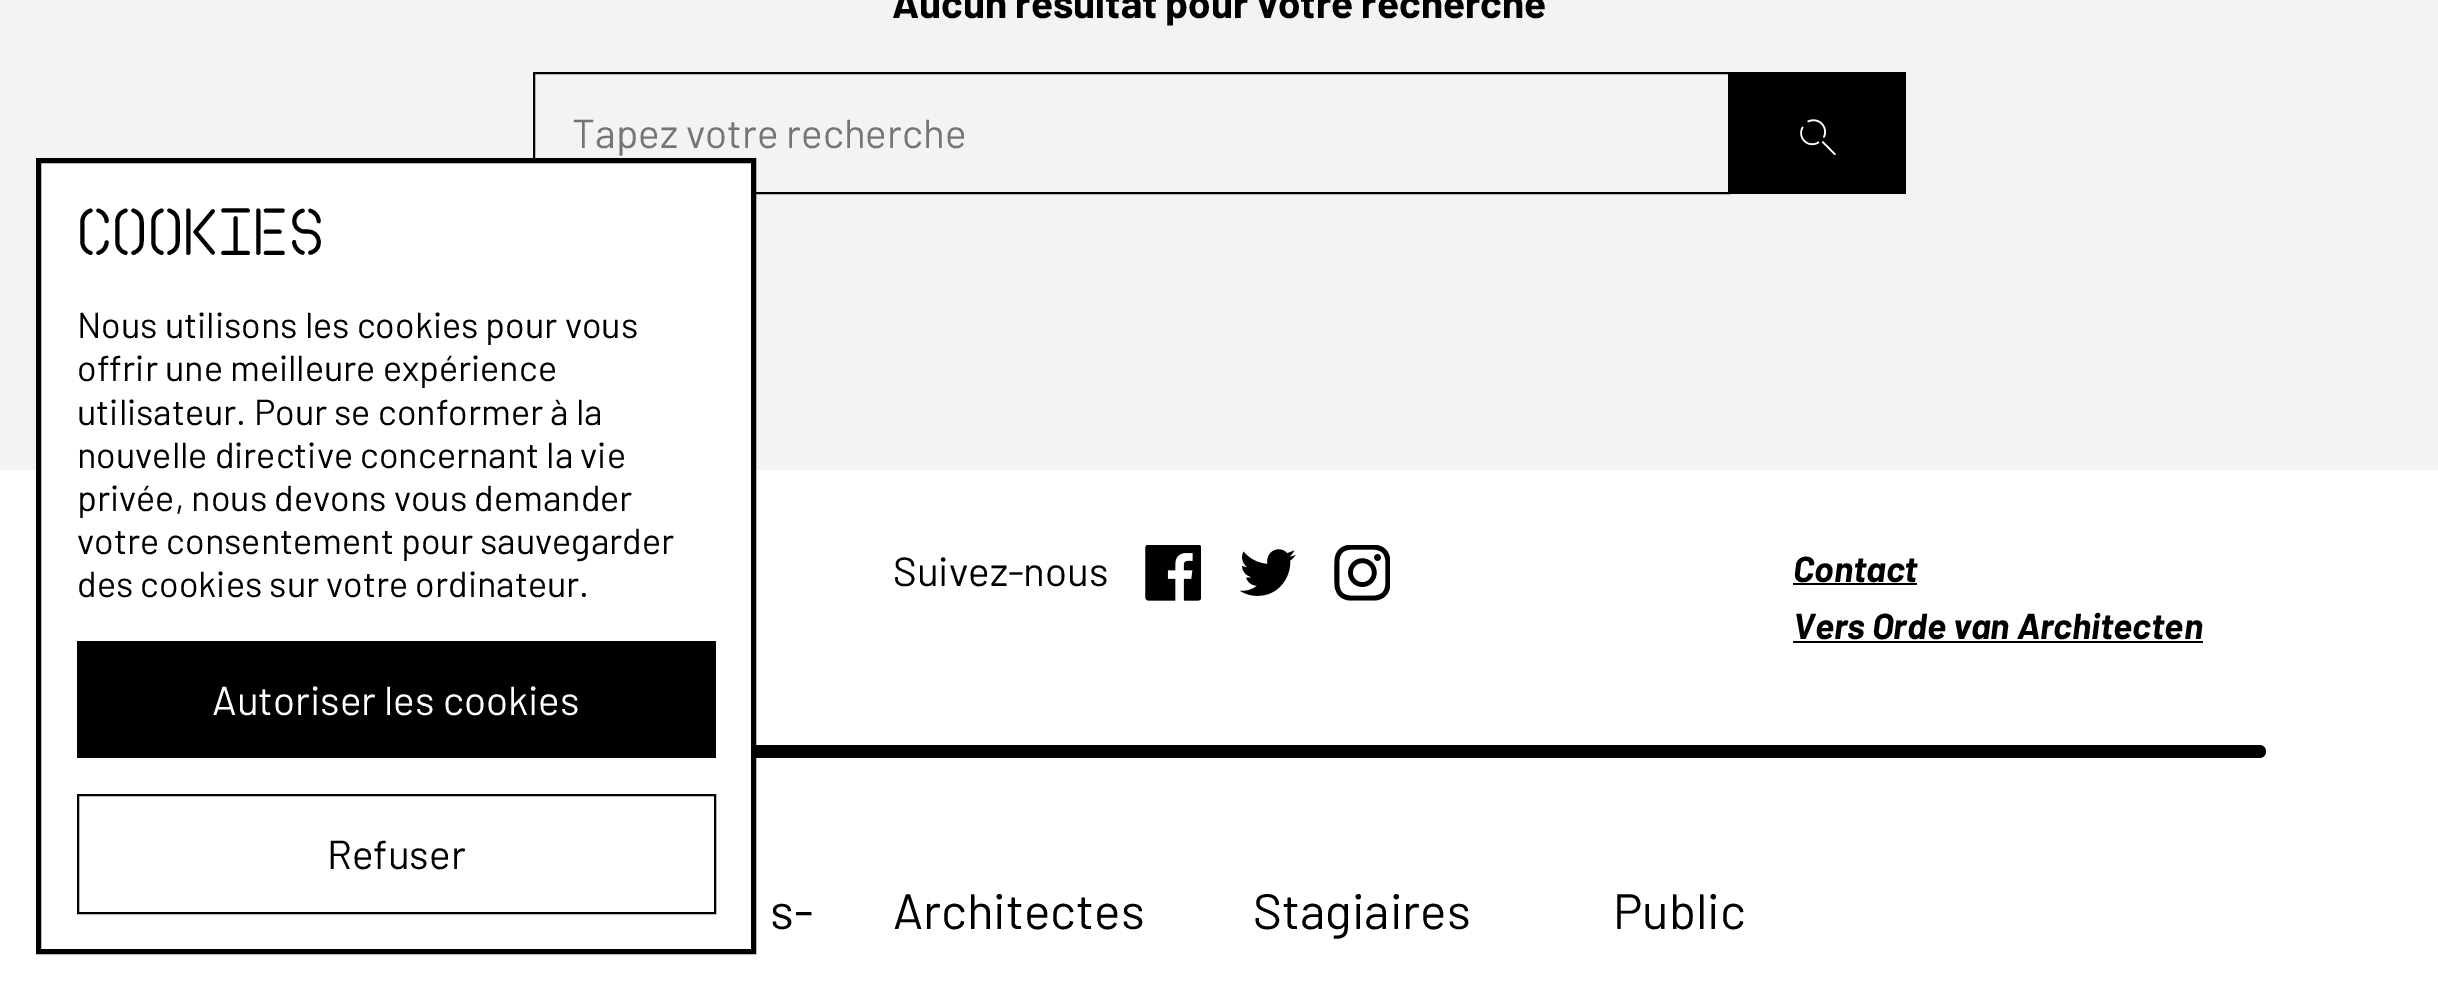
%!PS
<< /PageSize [2438 989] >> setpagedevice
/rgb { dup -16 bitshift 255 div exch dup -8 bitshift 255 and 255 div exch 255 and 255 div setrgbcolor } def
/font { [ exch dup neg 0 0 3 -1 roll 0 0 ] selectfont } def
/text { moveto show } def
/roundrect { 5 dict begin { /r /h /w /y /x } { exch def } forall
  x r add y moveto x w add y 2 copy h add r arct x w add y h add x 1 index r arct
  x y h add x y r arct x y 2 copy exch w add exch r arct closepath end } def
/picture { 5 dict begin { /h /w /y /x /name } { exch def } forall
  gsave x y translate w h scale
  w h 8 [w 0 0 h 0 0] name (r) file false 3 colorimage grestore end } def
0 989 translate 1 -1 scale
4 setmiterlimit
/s1 { /Barlow-Bold 40.5 font 16#000000 rgb } def
/s2 { /Barlow-Regular 40.5 font 16#757575 rgb } def
/s3 { /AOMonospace-Regular 63 font 16#000000 rgb } def
/s4 { /Barlow-Regular 36 font 16#000000 rgb } def
/s5 { /Barlow-Regular 40.5 font 16#FFFFFF rgb } def
/s6 { /Barlow-Regular 40.5 font 16#000000 rgb } def
/s7 { /Barlow-BoldItalic 36 font 16#000000 rgb } def
/s8 { /Barlow-Regular 49.5 font 16#000000 rgb } def
16#FFFFFF rgb
0 0 2438 989 rectfill
16#F3F3F3 rgb
0 0 2438 470 rectfill
s1
(Aucun résultat pour votre recherche) 892 18 text
2 setlinewidth
534 73 1195 120 rectstroke
s2
(Tapez votre recherche) 572 148 text
16#000000 rgb
1730 72 176 122 rectfill
(pic1.raw) 1800 119 36 36 picture
173 745 2093 13 6.5 roundrect fill
16#FFFFFF rgb
41 163 710 595 rectfill
16#000000 rgb
5 setlinewidth
38.5 160.5 715 791 rectstroke
s3
(Cookies) 77 255 text
s4
(Nous utilisons les cookies pour vous) 77 338 text
(offrir une meilleure expérience) 77 381 text
(utilisateur. Pour se conformer à la) 77 425 text
(nouvelle directive concernant la vie) 77 468 text
(privée, nous devons vous demander) 77 511 text
(votre consentement pour sauvegarder) 77 554 text
(des cookies sur votre ordinateur.) 77 597 text
77 641 639 117 rectfill
s5
(Autoriser les cookies) 212 715 text
16#000000 rgb
2 setlinewidth
78 795 637 118 rectstroke
(Refuser) 327 869 text
(Suivez-nous) 893 586 text
(pic2.raw) 1145 545 56 56 picture
(pic3.raw) 1240 549 56 47 picture
(pic4.raw) 1334 545 56 56 picture
s7
(Contact) 1793 582 text
1793 583 124 2 rectfill
(Vers Orde van Architecten) 1793 639 text
1793 641 410 2 rectfill
s8
(s-) 770 929 text
(Architectes) 893 929 text
(Stagiaires) 1253 929 text
(Public) 1613 929 text
showpage
